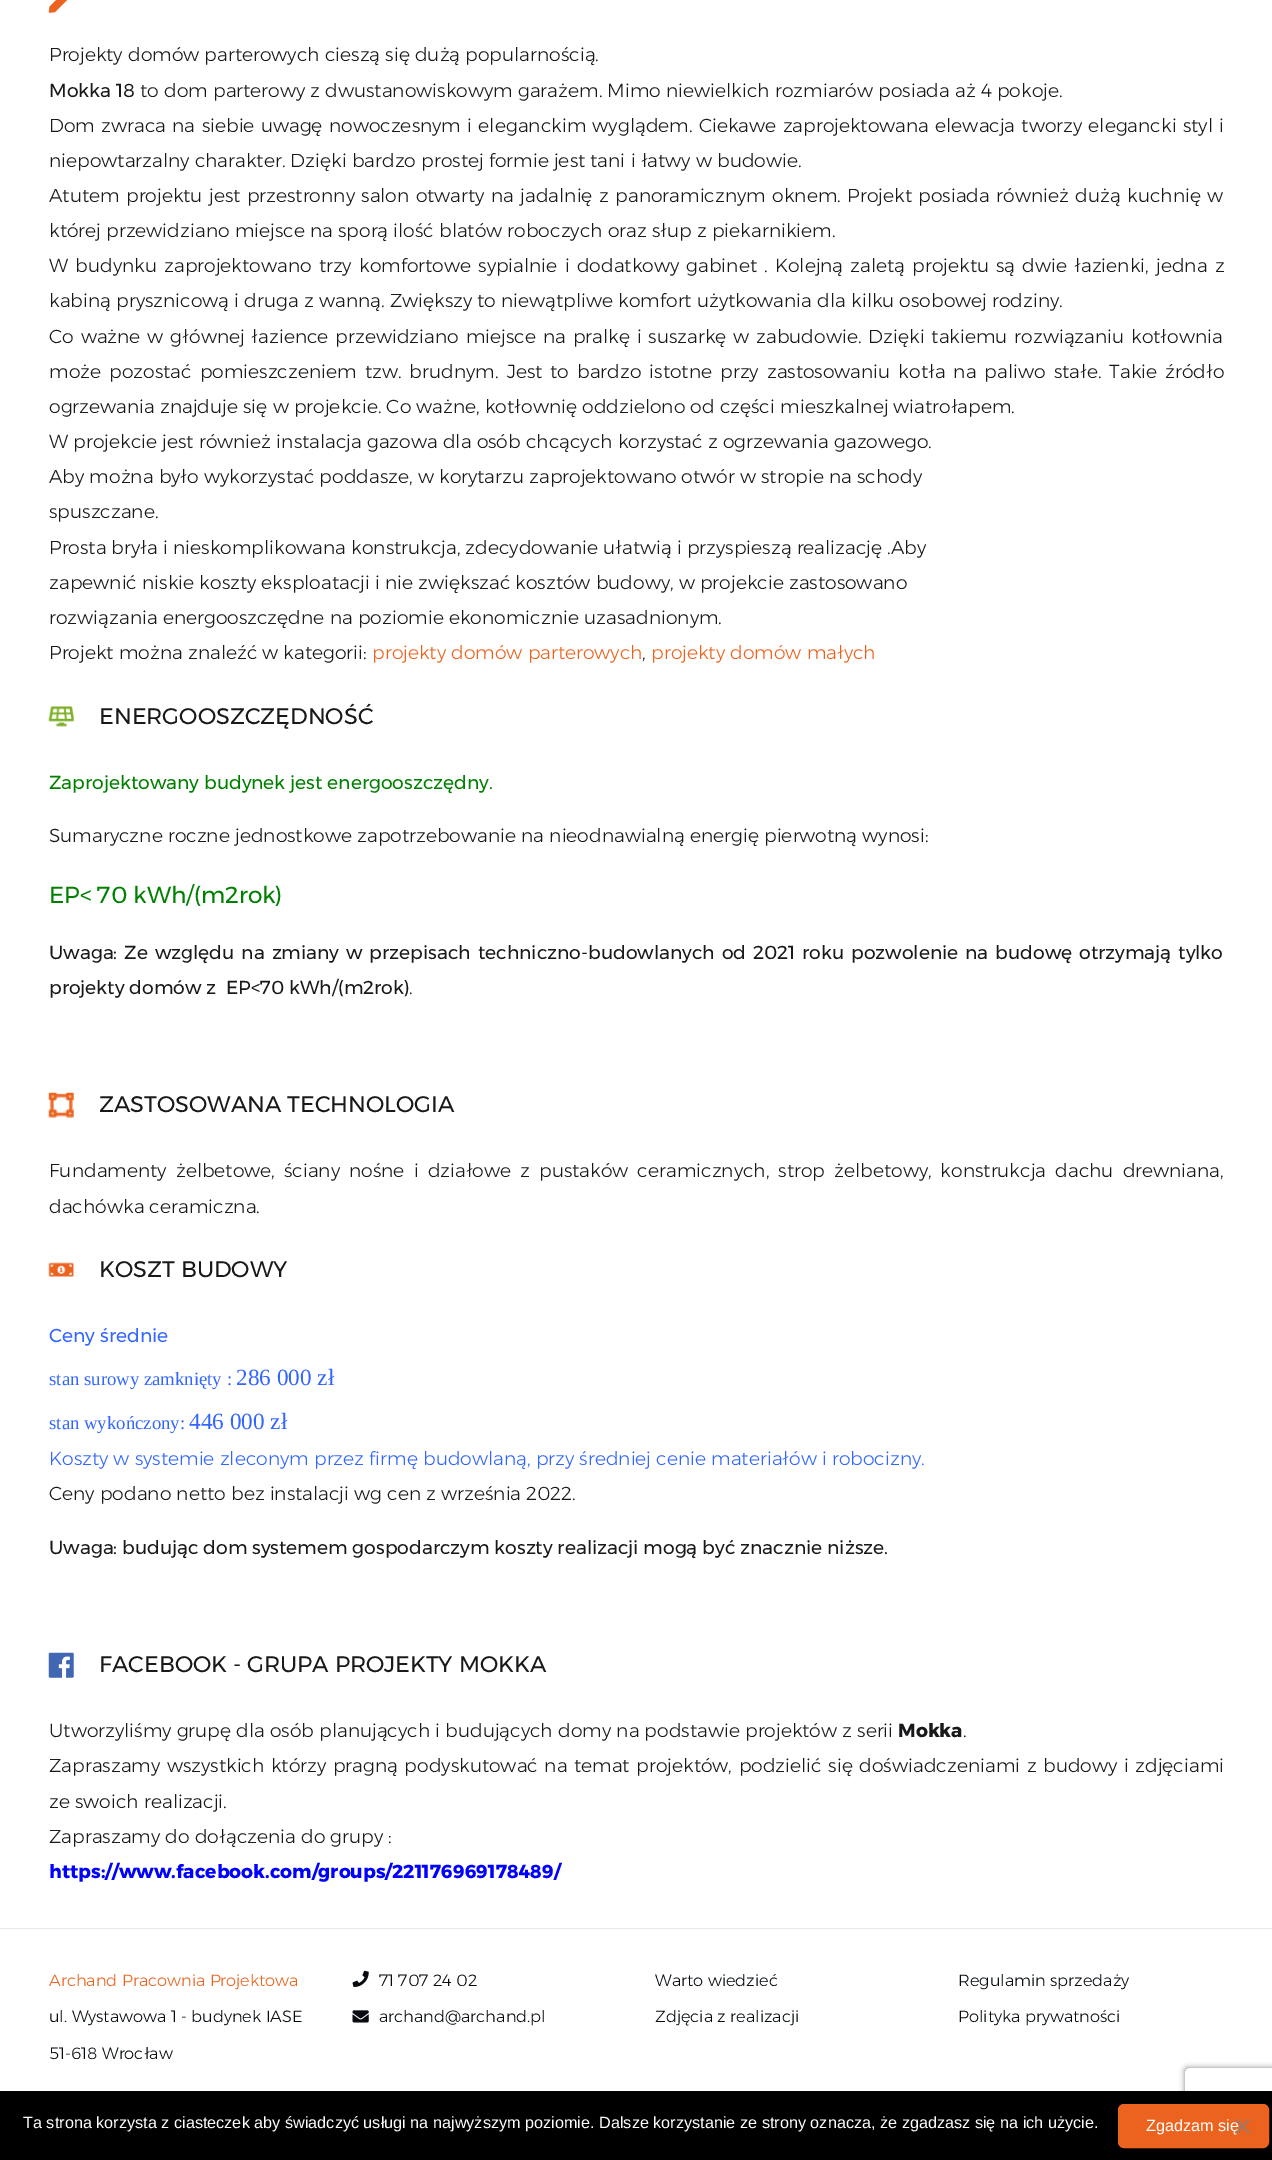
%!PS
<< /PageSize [1272 2160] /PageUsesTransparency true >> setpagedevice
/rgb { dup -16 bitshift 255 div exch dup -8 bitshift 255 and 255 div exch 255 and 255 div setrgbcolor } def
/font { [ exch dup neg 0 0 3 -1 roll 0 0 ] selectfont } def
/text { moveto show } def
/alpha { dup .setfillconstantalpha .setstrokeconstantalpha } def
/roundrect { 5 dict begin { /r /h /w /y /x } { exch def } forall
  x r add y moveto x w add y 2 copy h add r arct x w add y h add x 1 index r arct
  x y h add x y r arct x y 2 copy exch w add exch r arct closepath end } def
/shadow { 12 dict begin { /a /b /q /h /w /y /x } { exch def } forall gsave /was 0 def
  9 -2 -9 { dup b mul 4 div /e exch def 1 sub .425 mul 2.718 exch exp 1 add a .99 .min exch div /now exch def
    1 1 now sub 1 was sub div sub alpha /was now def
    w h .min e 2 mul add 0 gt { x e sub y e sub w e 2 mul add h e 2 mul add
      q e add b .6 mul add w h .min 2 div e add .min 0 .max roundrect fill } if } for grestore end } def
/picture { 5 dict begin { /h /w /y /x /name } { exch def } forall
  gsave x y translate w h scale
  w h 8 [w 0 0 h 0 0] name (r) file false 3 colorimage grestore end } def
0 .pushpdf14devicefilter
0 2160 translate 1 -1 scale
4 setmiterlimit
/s1 { /Montserrat-Light 18.75 font 16#19191B rgb } def
/s2 { /Montserrat-Regular 18.75 font 16#19191B rgb } def
/s3 { /Montserrat-Light 18.75 font 16#EC631F rgb } def
/s4 { /Montserrat-Regular 22.5 font 16#19191B rgb } def
/s5 { /Montserrat-Regular 18.75 font 16#008000 rgb } def
/s6 { /Montserrat-Regular 23.25 font 16#008000 rgb } def
/s7 { /Montserrat-Regular 18.75 font 16#3366FF rgb } def
/s8 { /LiberationSerif-Regular 18.75 font 16#3366FF rgb } def
/s9 { /LiberationSerif-Regular 23.25 font 16#3366FF rgb } def
/s10 { /Montserrat-Light 18.75 font 16#3366FF rgb } def
/s11 { /Montserrat-Bold 18.75 font 16#19191B rgb } def
/s12 { /Montserrat-Bold 18.75 font 16#0000FF rgb } def
/s13 { /Montserrat-Light 16.25 font 16#EC631F rgb } def
/s14 { /Montserrat-Light 16.25 font 16#070B0F rgb } def
/s15 { /LiberationSans-Regular 16.25 font 16#FFFFFF rgb } def
16#FFFFFF rgb
0 0 1272 2160 rectfill
(pic1.raw) 48 0 20 13 picture
s1
(Projekty domów parterowych cieszą się dużą popularnością.) 49 61 text
s2
(Mokka 18) 49 97 text
s1
(to dom parterowy z dwustanowiskowym garażem. Mimo niewielkich rozmiarów posiada aż 4 pokoje.) 140 97 text
49 132 moveto 1.1 0 32 (Dom zwraca na siebie uwagę nowoczesnym i eleganckim wyglądem. Ciekawe zaprojektowana elewacja tworzy elegancki styl i) widthshow
(niepowtarzalny charakter. Dzięki bardzo prostej formie jest tani i łatwy w budowie.) 49 167 text
49 202 moveto 1.25 0 32 (Atutem projektu jest przestronny salon otwarty na jadalnię z panoramicznym oknem. Projekt posiada również dużą kuchnię w) widthshow
(której przewidziano miejsce na sporą ilość blatów roboczych oraz słup z piekarnikiem.) 49 237 text
49 272 moveto 2 0 32 (W budynku zaprojektowano trzy komfortowe sypialnie i dodatkowy gabinet . Kolejną zaletą projektu są dwie łazienki, jedna z) widthshow
(kabiną prysznicową i druga z wanną. Zwiększy to niewątpliwe komfort użytkowania dla kilku osobowej rodziny.) 49 307 text
49 343 moveto 1.75 0 32 (Co ważne w głównej łazience przewidziano miejsce na pralkę i suszarkę w zabudowie. Dzięki takiemu rozwiązaniu kotłownia) widthshow
49 378 moveto 2.9 0 32 (może pozostać pomieszczeniem tzw. brudnym. Jest to bardzo istotne przy zastosowaniu kotła na paliwo stałe. Takie źródło) widthshow
(ogrzewania znajduje się w projekcie. Co ważne, kotłownię oddzielono od części mieszkalnej wiatrołapem.) 49 413 text
(W projekcie jest również instalacja gazowa dla osób chcących korzystać z ogrzewania gazowego.) 49 448 text
(Aby można było wykorzystać poddasze, w korytarzu zaprojektowano otwór w stropie na schody) 49 483 text
(spuszczane.) 49 518 text
(Prosta bryła i nieskomplikowana konstrukcja, zdecydowanie ułatwią i przyspieszą realizację .Aby) 49 554 text
(zapewnić niskie koszty eksploatacji i nie zwiększać kosztów budowy, w projekcie zastosowano) 49 589 text
(rozwiązania energooszczędne na poziomie ekonomicznie uzasadnionym.) 49 624 text
(Projekt można znaleźć w kategorii:) 49 659 text
s3
(projekty domów parterowych) 372 659 text
s1
(,) 642 659 text
s3
(projekty domów małych) 651 659 text
(pic2.raw) 48 706 26 21 picture
s4
(ENERGOOSZCZĘDNOŚĆ) 99 724 text
s5
(Zaprojektowany budynek jest energooszczędny.) 49 789 text
s1
(Sumaryczne roczne jednostkowe zapotrzebowanie na nieodnawialną energię pierwotną wynosi:) 49 842 text
s6
(EP< 70 kWh/\(m2rok\)) 49 903 text
/Montserrat-Regular 18.75 font
16#19191B rgb
49 959 moveto 2.1 0 32 (Uwaga: Ze względu na zmiany w przepisach techniczno-budowlanych od 2021 roku pozwolenie na budowę otrzymają tylko) widthshow
(projekty domów z  EP<70 kWh/\(m2rok\)) 49 994 text
s1
(.) 409 994 text
(pic3.raw) 48 1092 26 26 picture
s4
(ZASTOSOWANA TECHNOLOGIA) 99 1112 text
/Montserrat-Light 18.75 font
49 1177 moveto 3.9 0 32 (Fundamenty żelbetowe, ściany nośne i działowe z pustaków ceramicznych, strop żelbetowy, konstrukcja dachu drewniana,) widthshow
(dachówka ceramiczna.) 49 1213 text
(pic4.raw) 48 1262 26 15 picture
s4
(KOSZT BUDOWY) 99 1277 text
s7
(Ceny średnie) 49 1342 text
s8
(stan surowy zamknięty :) 49 1385 text
s9
(286 000 zł) 236 1385 text
s8
(stan wykończony:) 49 1429 text
s9
(446 000 zł) 189 1429 text
s10
(Koszty w systemie zleconym przez firmę budowlaną, przy średniej cenie materiałów i robocizny.) 49 1465 text
s1
(Ceny podano netto bez instalacji wg cen z września 2022.) 49 1500 text
s2
(Uwaga: budując dom systemem gospodarczym koszty realizacji mogą być znacznie niższe.) 49 1554 text
(pic5.raw) 48 1652 26 26 picture
s4
(FACEBOOK - GRUPA PROJEKTY MOKKA) 99 1672 text
s1
(Utworzyliśmy grupę dla osób planujących i budujących domy na podstawie projektów z serii) 49 1737 text
s11
(Mokka) 898 1737 text
s1
(.) 963 1737 text
49 1772 moveto 1.4 0 32 (Zapraszamy wszystkich którzy pragną podyskutować na temat projektów, podzielić się doświadczeniami z budowy i zdjęciami) widthshow
(ze swoich realizacji.) 49 1808 text
(Zapraszamy do dołączenia do grupy :) 49 1843 text
s12
(https://www.facebook.com/groups/221176969178489/) 49 1878 text
16#E8E8E8 rgb
0 1928 1272 1 rectfill
s13
(Archand Pracownia Projektowa) 49 1986 text
s14
(ul. Wystawowa 1 - budynek IASE) 49 2022 text
(51-618 Wrocław) 49 2059 text
(pic6.raw) 352 1970 17 17 picture
(71 707 24 02) 379 1986 text
(pic7.raw) 352 2010 17 13 picture
(archand@archand.pl) 379 2022 text
(Warto wiedzieć) 655 1986 text
(Zdjęcia z realizacji) 655 2022 text
(Regulamin sprzedaży) 958 1986 text
(Polityka prywatności) 958 2022 text
gsave
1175 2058 moveto 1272 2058 lineto 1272 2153 lineto 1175 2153 lineto closepath 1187.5 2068 moveto 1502.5 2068 lineto 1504 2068 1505 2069 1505 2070.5 curveto 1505 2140.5 lineto 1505 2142 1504 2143 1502.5 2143 curveto 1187.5 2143 lineto 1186 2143 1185 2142 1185 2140.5 curveto 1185 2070.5 lineto 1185 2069 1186 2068 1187.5 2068 curveto closepath eoclip newpath
16#808080 rgb
1185 2068 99 75 2.5 3 1 shadow
grestore
16#000000 rgb
0 2091 1272 69 rectfill
s15
(Ta strona korzysta z ciasteczek aby świadczyć usługi na najwyższym poziomie. Dalsze korzystanie ze strony oznacza, że zgadzasz się na ich użycie.) 23 2128 text
16#EC631F rgb
1118.5 2104.5 150 43 5.5 roundrect gsave fill grestore
stroke
s15
(Zgadzam się) 1146 2131 text
0.5 alpha
16#808080 rgb
1248 2118.5 moveto 1250 2120.5 lineto 1237 2134 lineto 1235 2132 lineto closepath fill
1235 2120.5 moveto 1237 2118.5 lineto 1250 2132 lineto 1248 2134 lineto closepath fill
.poppdf14devicefilter showpage
